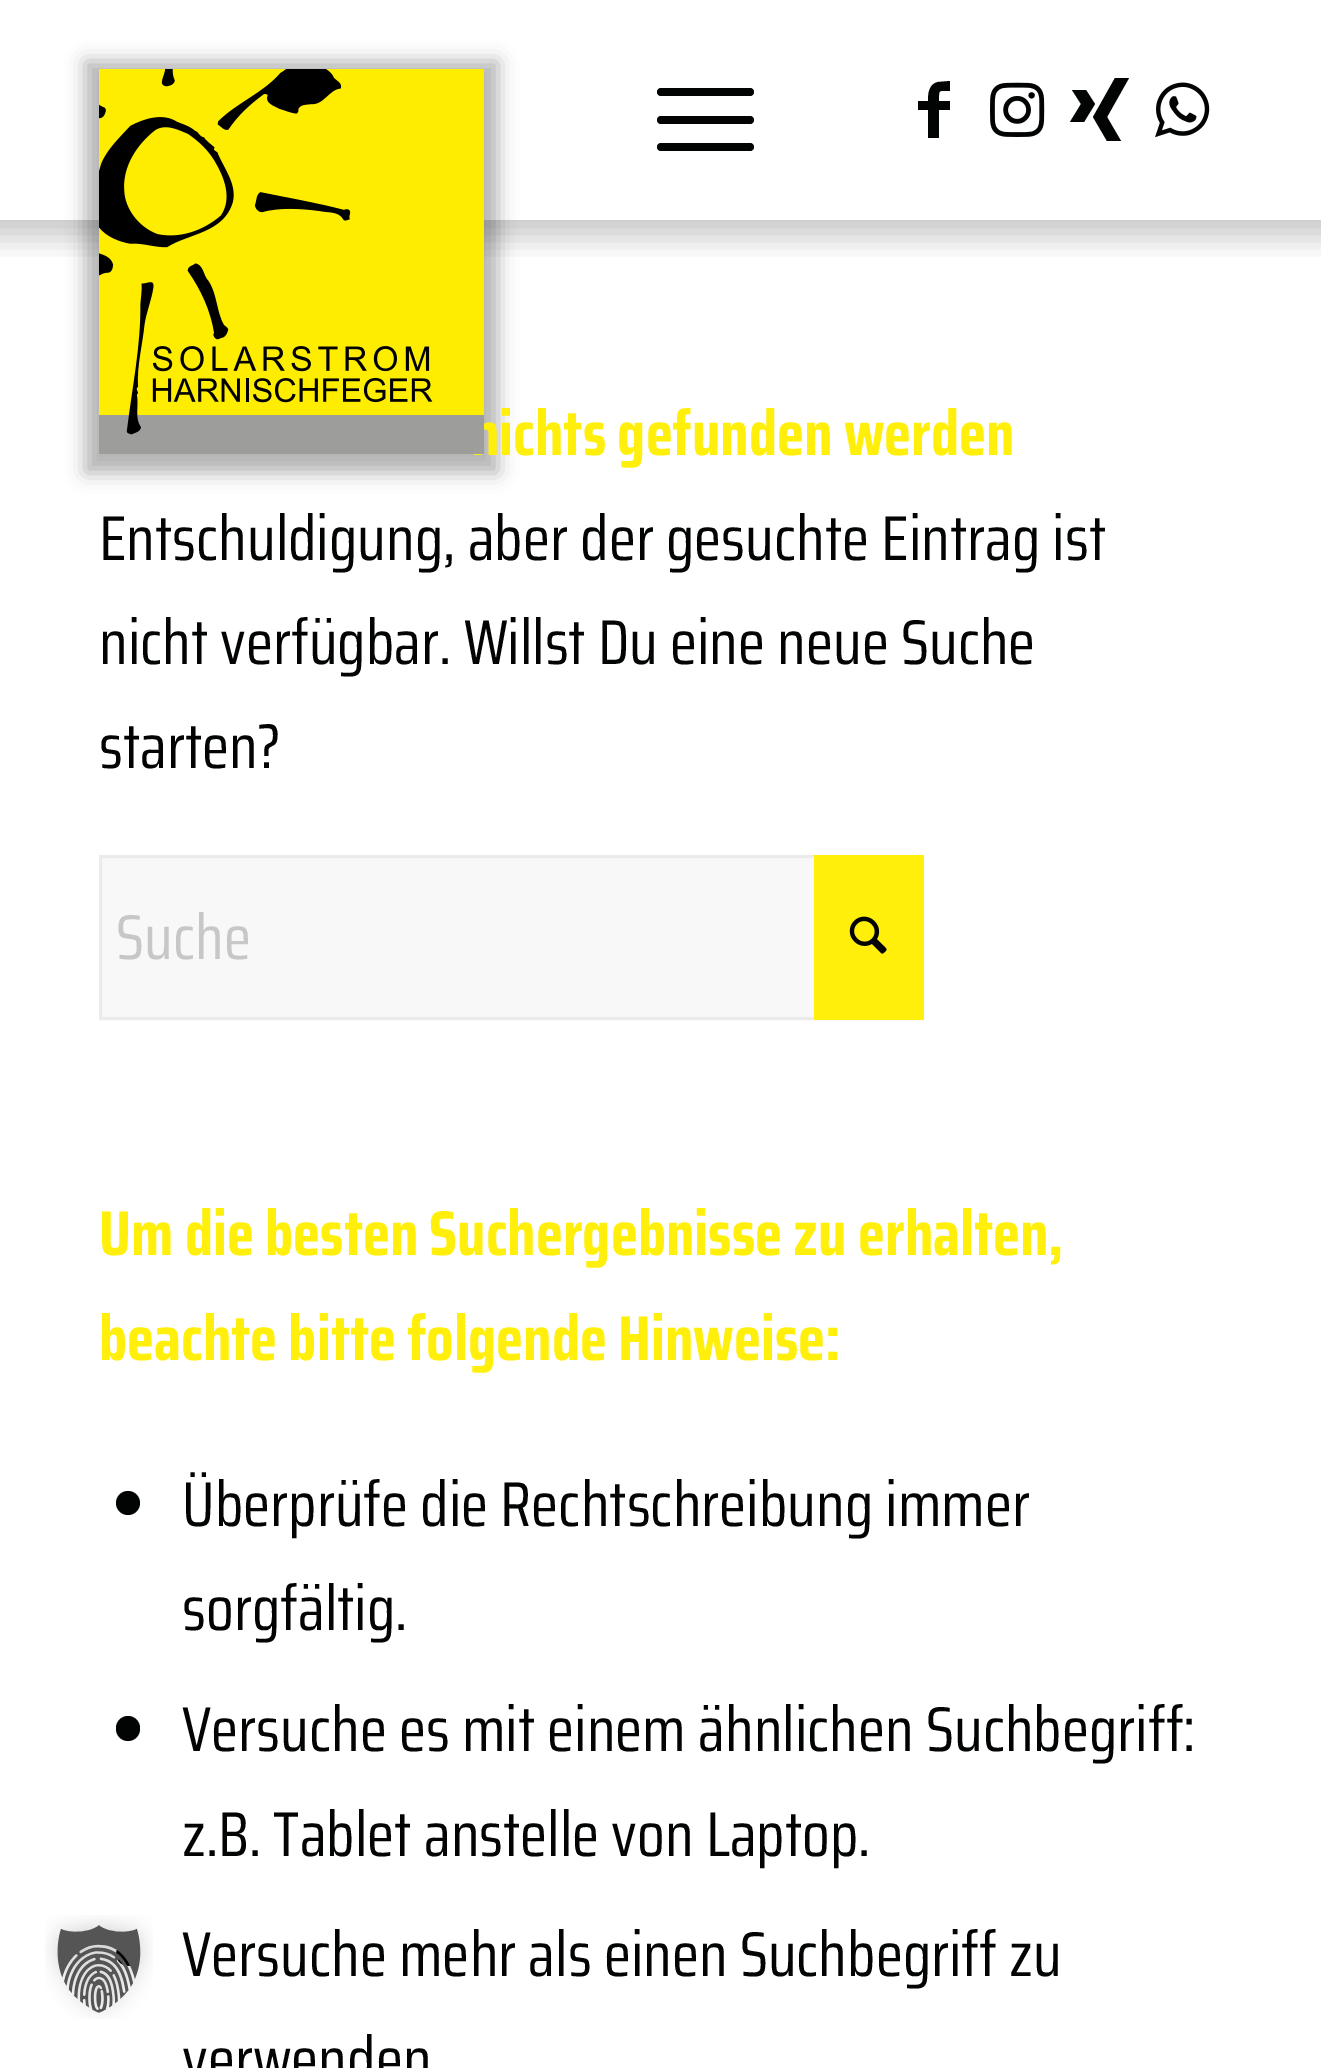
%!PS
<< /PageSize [1321 2068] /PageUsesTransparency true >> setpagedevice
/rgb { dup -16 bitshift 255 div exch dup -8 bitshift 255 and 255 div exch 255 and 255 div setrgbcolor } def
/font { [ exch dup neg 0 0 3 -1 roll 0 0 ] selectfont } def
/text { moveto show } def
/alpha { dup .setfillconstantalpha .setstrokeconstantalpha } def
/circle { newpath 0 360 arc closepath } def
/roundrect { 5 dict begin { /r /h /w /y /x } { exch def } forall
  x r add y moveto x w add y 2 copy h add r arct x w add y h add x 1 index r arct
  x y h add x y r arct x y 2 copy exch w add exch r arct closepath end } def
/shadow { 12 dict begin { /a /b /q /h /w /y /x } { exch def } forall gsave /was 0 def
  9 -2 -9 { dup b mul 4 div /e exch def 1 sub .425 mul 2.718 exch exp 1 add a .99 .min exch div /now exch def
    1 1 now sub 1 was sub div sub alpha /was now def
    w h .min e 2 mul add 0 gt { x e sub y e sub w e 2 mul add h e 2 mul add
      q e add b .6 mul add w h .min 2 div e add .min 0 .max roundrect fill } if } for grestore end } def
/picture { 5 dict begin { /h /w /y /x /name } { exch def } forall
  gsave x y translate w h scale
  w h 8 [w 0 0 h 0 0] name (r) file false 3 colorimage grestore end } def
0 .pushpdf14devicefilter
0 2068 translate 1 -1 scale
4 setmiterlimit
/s1 { /SairaCondensed-Bold 63.25 font 16#FFEF0A rgb } def
/s2 { /SairaCondensed-Regular 63.25 font 16#020303 rgb } def
/s3 { /SairaCondensed-Regular 63.25 font 16#C7C7C7 rgb } def
16#FFFFFF rgb
0 0 1321 2068 rectfill
16#020303 rgb
128 1954 12 circle fill
(pic1.raw) 45 1915 108 104 picture
gsave
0 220 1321 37 rectclip
16#000000 rgb
-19 -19 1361 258 0 14 0.2 shadow
grestore
16#000000 rgb
85 61 413 412 0 9.5 0.3 shadow
s1
(nichts gefunden werden) 471 455 text
(pic2.raw) 99 69 385 385 picture
16#020303 rgb
657 116 97 8 4 roundrect fill
657 88 97 8 4 roundrect fill
657 143 97 8 4 roundrect fill
950 91 moveto 938 91 939 89 939 101 curveto 950 101 lineto 950 110 lineto 939 110 lineto 939 138 lineto 928 138 lineto 928 110 lineto 918 110 lineto 918 101 lineto 928 101 lineto 928 93 929 84 938 82 curveto 950 81 lineto closepath fill
(pic3.raw) 990 82 55 55 picture
1070 122 moveto 1084 122 lineto 1095 104 lineto 1086 90 lineto 1072 90 lineto 1081 104 lineto closepath 1093 117 moveto 1115 78 lineto 1129 78 lineto 1107 117 lineto 1121 141 lineto 1107 141 lineto closepath fill
(pic4.raw) 1155 82 55 56 picture
s2
(Entschuldigung, aber der gesuchte Eintrag ist) 99 560 text
(nicht verfügbar. Willst Du eine neue Suche) 99 664 text
(starten?) 99 768 text
16#F8F8F8 rgb
102 858 712 159 rectfill
16#EBEBEB rgb
3 setlinewidth
100.5 856.5 822 162 rectstroke
s3
(Suche) 116 959 text
16#FFEF0A rgb
814 855 110 165 rectfill
(pic5.raw) 849 916 38 38 picture
s1
(Um die besten Suchergebnisse zu erhalten,) 99 1255 text
(beachte bitte folgende Hinweise:) 99 1360 text
16#020303 rgb
128 1503 12 circle fill
s2
(Überprüfe die Rechtschreibung immer) 182 1526 text
(sorgfältig.) 182 1630 text
116 1716 24 25 12 roundrect fill
(Versuche es mit einem ähnlichen Suchbegriff:) 182 1751 text
(z.B. Tablet anstelle von Laptop.) 182 1856 text
(Versuche mehr als einen Suchbegriff zu) 182 1976 text
(verwenden) 182 2081 text
.poppdf14devicefilter showpage
